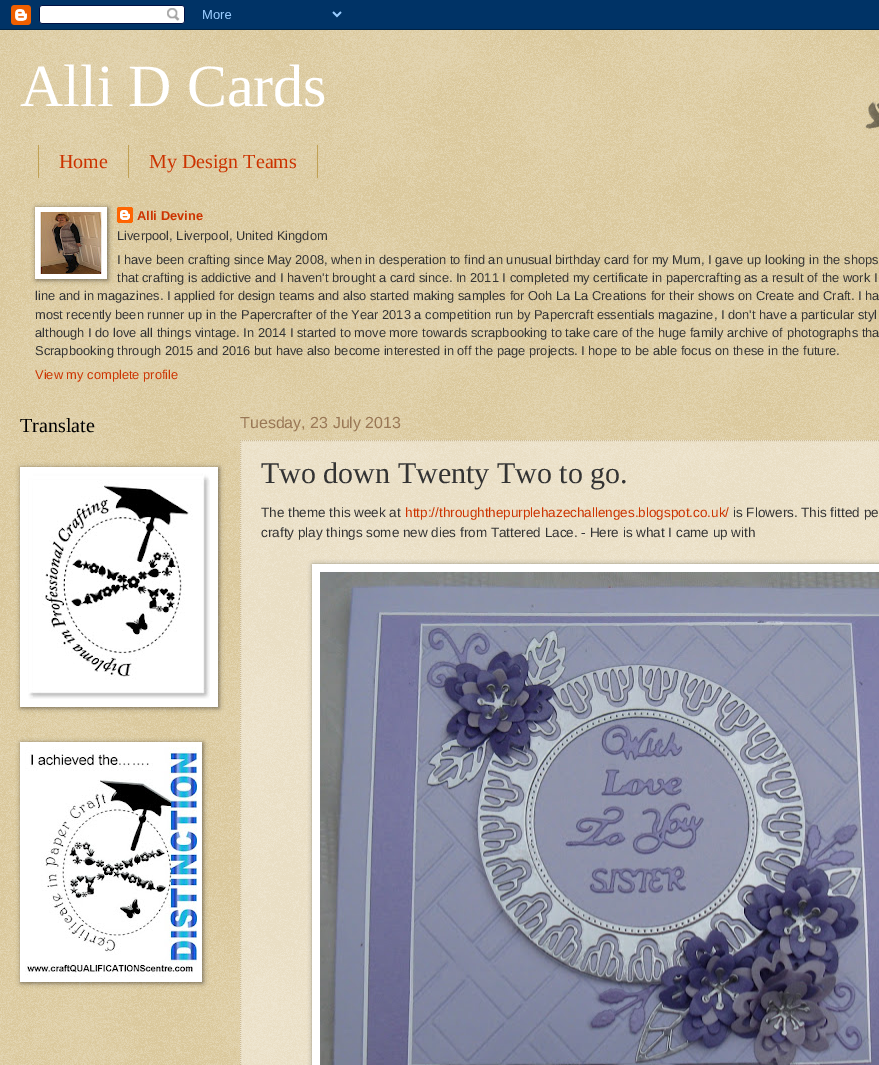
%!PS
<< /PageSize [879 1065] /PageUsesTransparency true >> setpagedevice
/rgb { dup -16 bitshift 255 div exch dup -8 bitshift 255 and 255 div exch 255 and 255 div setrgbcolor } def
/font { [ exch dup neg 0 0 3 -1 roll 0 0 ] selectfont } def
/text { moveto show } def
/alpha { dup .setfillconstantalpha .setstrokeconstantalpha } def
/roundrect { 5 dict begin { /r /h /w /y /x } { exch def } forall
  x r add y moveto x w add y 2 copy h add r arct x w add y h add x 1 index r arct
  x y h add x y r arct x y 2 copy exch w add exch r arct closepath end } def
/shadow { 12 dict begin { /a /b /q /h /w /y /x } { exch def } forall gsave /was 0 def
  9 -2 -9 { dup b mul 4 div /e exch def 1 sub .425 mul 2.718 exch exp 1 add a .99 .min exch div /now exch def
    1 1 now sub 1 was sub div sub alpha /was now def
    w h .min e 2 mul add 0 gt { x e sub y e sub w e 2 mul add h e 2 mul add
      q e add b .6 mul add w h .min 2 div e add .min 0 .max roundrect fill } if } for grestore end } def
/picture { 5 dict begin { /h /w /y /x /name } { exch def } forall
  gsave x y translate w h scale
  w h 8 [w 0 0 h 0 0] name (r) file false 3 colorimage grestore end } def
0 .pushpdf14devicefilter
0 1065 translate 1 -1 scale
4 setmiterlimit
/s1 { /LiberationSerif-Regular 60 font 16#FFFFFF rgb } def
/s2 { /LiberationSerif-Regular 20 font 16#CC3300 rgb } def
/s3 { /LiberationSans-Bold 12.88 font 16#CC3300 rgb } def
/s4 { /LiberationSans-Regular 12.88 font 16#333333 rgb } def
/s5 { /LiberationSans-Regular 12.88 font 16#CC3300 rgb } def
/s6 { /LiberationSerif-Regular 20 font 16#000000 rgb } def
/s7 { /LiberationSans-Regular 16 font 16#997755 rgb } def
/s8 { /LiberationSerif-Regular 30 font 16#333333 rgb } def
/s9 { /LiberationSans-Regular 13.5 font 16#333333 rgb } def
/s10 { /LiberationSans-Regular 13.5 font 16#CC3300 rgb } def
16#C0A154 rgb
0 0 879 1065 rectfill
(pic1.raw) 0 30 879 1035 picture
(pic2.raw) 0 0 879 30 picture
s1
(Alli D Cards) 20 106 text
16#C0A154 rgb
128 145 1 33 rectfill
38 145 1 33 rectfill
s2
(Home) 59 168 text
16#C0A154 rgb
317 145 1 33 rectfill
s2
(My Design Teams) 149 168 text
16#000000 rgb
36 208 72 72 0 2.5 0.5 shadow
16#FFFFFF rgb
35 207 72 72 rectfill
(pic3.raw) 40 212 62 62 picture
(pic4.raw) 117 207 16 16 picture
s3
(Alli Devine) 137 220 text
s4
(Liverpool, Liverpool, United Kingdom) 117 240 text
(I have been crafting since May 2008, when in desperation to find an unusual birthday card for my Mum, I gave up looking in the shops) 117 264 text
(that crafting is addictive and I haven't brought a card since. In 2011 I completed my certificate in papercrafting as a result of the work I) 117 282 text
(line and in magazines. I applied for design teams and also started making samples for Ooh La La Creations for their shows on Create and Craft. I ha) 35 300 text
(most recently been runner up in the Papercrafter of the Year 2013 a competition run by Papercraft essentials magazine, I don't have a particular styl) 35 319 text
(although I do love all things vintage. In 2014 I started to move more towards scrapbooking to take care of the huge family archive of photographs tha) 35 337 text
(Scrapbooking through 2015 and 2016 but have also become interested in off the page projects. I hope to be able focus on these in the future.) 35 355 text
s5
(View my complete profile) 35 379 text
s6
(Translate) 20 432 text
21 468 198 240 0 2.5 0.5 shadow
16#FFFFFF rgb
20 467 198 240 rectfill
(pic5.raw) 28 473 182 226 picture
16#000000 rgb
21 743 182 240 0 2.5 0.5 shadow
16#FFFFFF rgb
20 742 182 240 rectfill
(pic6.raw) 25 747 172 230 picture
s7
(Tuesday, 23 July 2013) 240 428 text
0.4 alpha
16#FFFFFF rgb
240 440 639 625 rectfill
1 alpha
16#CCBB99 rgb
[1 1] 0 setdash
240 440.5 moveto 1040 440.5 lineto stroke
240.5 440 moveto 240.5 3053 lineto stroke
s8
(Two down Twenty Two to go.) 261 483 text
s9
(The theme this week at) 261 517 text
s10
(http://throughthepurplehazechallenges.blogspot.co.uk/) 405 517 text
s9
(is Flowers. This fitted pe) 733 517 text
(crafty play things some new dies from Tattered Lace. - Here is what I came up with) 261 537 text
16#000000 rgb
313 565 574 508 0 2.5 0.5 shadow
16#FFFFFF rgb
312 564 567 501 rectfill
(pic7.raw) 320 572 559 493 picture
(pic8.raw) 865 101 14 28 picture
.poppdf14devicefilter showpage
